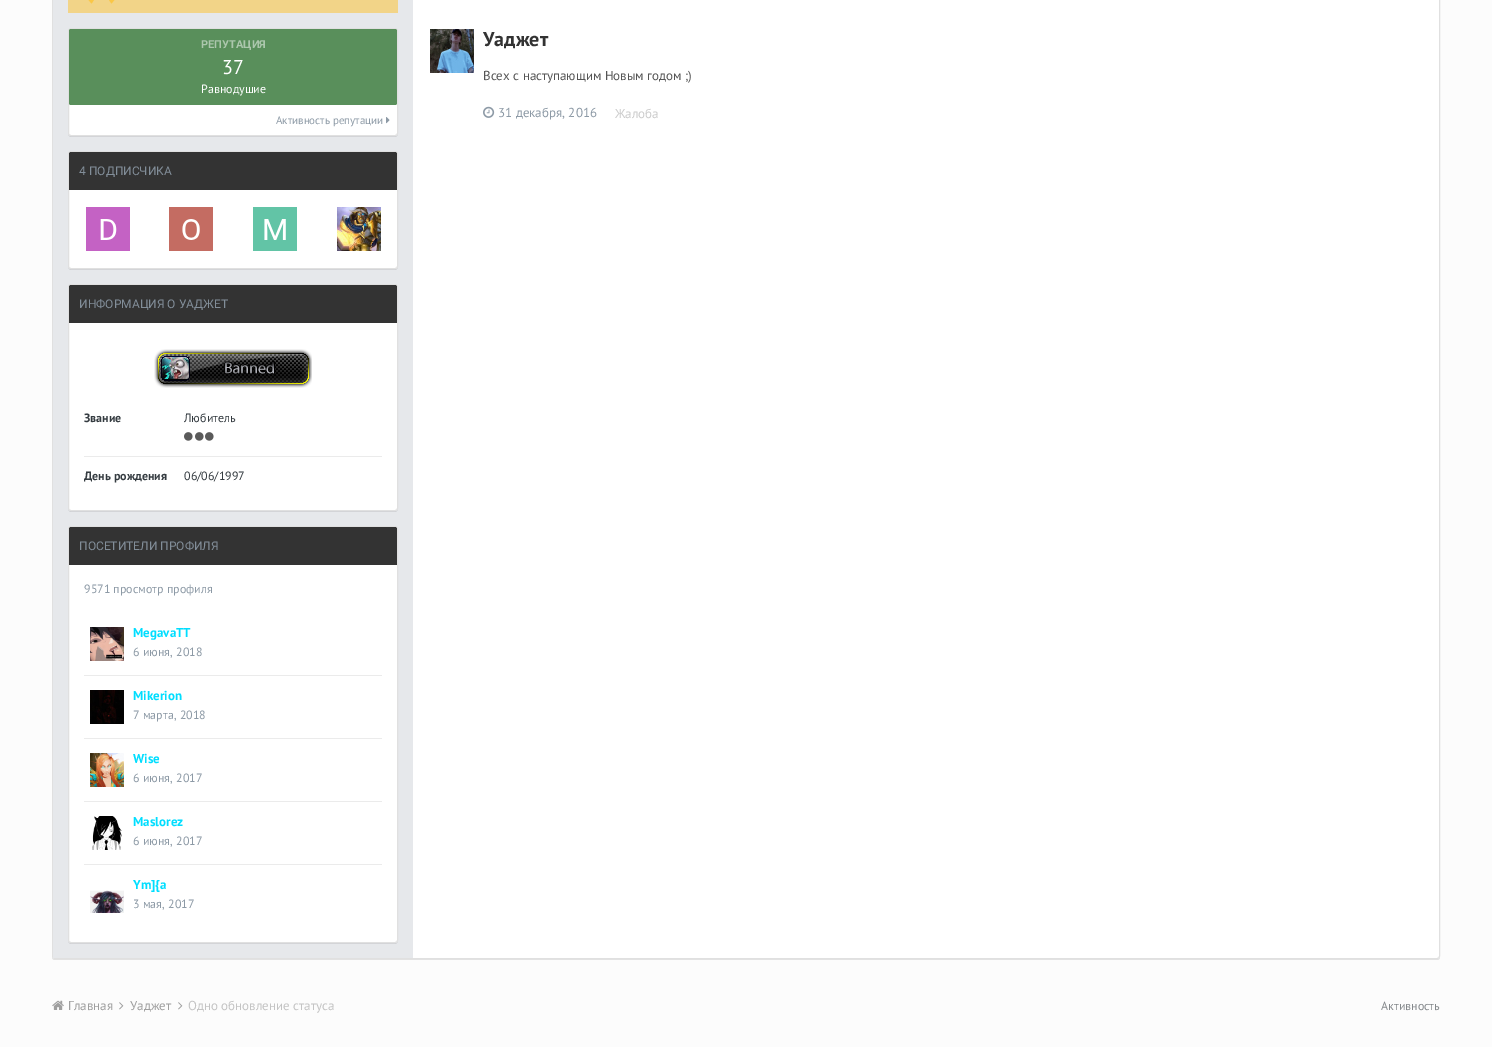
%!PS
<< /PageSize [1492 1047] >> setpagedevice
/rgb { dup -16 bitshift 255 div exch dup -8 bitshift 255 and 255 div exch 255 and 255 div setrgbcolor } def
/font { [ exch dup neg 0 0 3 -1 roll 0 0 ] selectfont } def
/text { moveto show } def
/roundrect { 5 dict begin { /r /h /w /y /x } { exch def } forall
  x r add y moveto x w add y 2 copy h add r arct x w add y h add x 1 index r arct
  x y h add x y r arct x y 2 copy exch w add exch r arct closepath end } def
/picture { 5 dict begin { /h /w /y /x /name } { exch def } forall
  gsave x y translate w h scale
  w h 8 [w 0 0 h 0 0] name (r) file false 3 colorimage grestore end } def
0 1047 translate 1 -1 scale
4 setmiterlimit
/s1 { /Roboto-Bold 11 font 16#ACC7AD rgb } def
/s2 { /PTSans-Regular 20 font 16#FFFFFF rgb } def
/s3 { /PTSans-Regular 12 font 16#FFFFFF rgb } def
/s4 { /PTSans-Regular 11 font 16#8D9AA6 rgb } def
/s5 { /Roboto-Regular 12 font 16#828E99 rgb } def
/s6 { /PTSans-Bold 12 font 16#353C41 rgb } def
/s7 { /PTSans-Regular 12 font 16#353C41 rgb } def
/s8 { /PTSans-Regular 12 font 16#8D9AA6 rgb } def
/s9 { /PTSans-Bold 13 font 16#00DEFF rgb } def
/s10 { /PTSans-Bold 20 font 16#333333 rgb } def
/s11 { /PTSans-Regular 13 font 16#555555 rgb } def
/s12 { /PTSans-Regular 13 font 16#8D9AA6 rgb } def
/s13 { /PTSans-Regular 13 font 16#CCCCCC rgb } def
/s14 { /PTSans-Regular 13 font 16#9F9F9F rgb } def
/s15 { /PTSans-Regular 13 font 16#C4C4C4 rgb } def
/s16 { /PTSans-Regular 12 font 16#85898C rgb } def
16#FCFCFC rgb
0 0 1492 1047 rectfill
16#E3E3E3 rgb
52 956 moveto 52 957 lineto 52 959 53 960 55 960 curveto 1437 960 lineto 1439 960 1440 959 1440 957 curveto 1440 956 lineto 1440 958 1439 959 1437 959 curveto 55 959 lineto 53 959 52 958 52 956 curveto closepath fill
16#FFFFFF rgb
52.5 -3.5 1387 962 2.5 roundrect gsave fill grestore
16#E0E0E0 rgb
stroke
16#E6E8EB rgb
53 0 360 958 rectfill
16#F2D488 rgb
68 0 330 13 rectfill
16#FAC746 rgb
101.5 -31.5 moveto 109 -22 lineto 91.5 3.5 lineto 83.5 -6 lineto closepath 93.5 -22 moveto 101.5 -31.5 lineto 119 -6 lineto 111.5 3.5 lineto closepath fill
16#CFD1D4 rgb
68 133 moveto 68 135 69 137 71 137 curveto 395 137 lineto 397 137 398 135 398 133 curveto 398 135 397 136 395 136 curveto 71 136 lineto 69 136 68 135 68 133 curveto closepath fill
16#FFFFFF rgb
68.5 28.5 329 107 2.5 roundrect gsave fill grestore
16#E0E0E0 rgb
stroke
16#598F5B rgb
69 29 328 76 2 roundrect fill
s1
(РЕПУТАЦИЯ) 201 48 text
s2
(37) 222 74 text
s3
(Равнодушие) 201 93 text
s4
(Активность репутации) 276 124 text
(pic1.raw) 386 117 4 7 picture
16#CFD1D4 rgb
68 266 moveto 68 268 69 270 71 270 curveto 395 270 lineto 397 270 398 268 398 266 curveto 398 268 397 269 395 269 curveto 71 269 lineto 69 269 68 268 68 266 curveto closepath fill
16#FFFFFF rgb
68.5 151.5 329 117 2.5 roundrect gsave fill grestore
16#E0E0E0 rgb
stroke
16#333333 rgb
71 152 moveto 395 152 lineto 396 152 397 153 397 154 curveto 397 190 lineto 69 190 lineto 69 154 lineto 69 153 70 152 71 152 curveto closepath fill
s5
(4 ПОДПИСЧИКА) 79 175 text
(pic2.raw) 86 207 44 44 picture
(pic3.raw) 169 207 44 44 picture
(pic4.raw) 253 207 44 44 picture
(pic5.raw) 337 207 44 44 picture
16#CFD1D4 rgb
68 508 moveto 68 510 69 512 71 512 curveto 395 512 lineto 397 512 398 510 398 508 curveto 398 510 397 511 395 511 curveto 71 511 lineto 69 511 68 510 68 508 curveto closepath fill
16#FFFFFF rgb
68.5 284.5 329 226 2.5 roundrect gsave fill grestore
16#E0E0E0 rgb
stroke
16#333333 rgb
71 285 moveto 395 285 lineto 396 285 397 286 397 287 curveto 397 323 lineto 69 323 lineto 69 287 lineto 69 286 70 285 71 285 curveto closepath fill
s5
(ИНФОРМАЦИЯ О УАДЖЕТ) 79 308 text
(pic6.raw) 154 349 158 39 picture
16#EBEBEB rgb
84 456 298 1 rectfill
s6
(Звание) 84 422 text
s7
(Любитель) 184 422 text
(pic7.raw) 184 432 9 9 picture
(pic7.raw) 195 432 9 9 picture
(pic7.raw) 205 432 9 9 picture
s6
(День рождения) 84 480 text
s7
(06/06/1997) 184 480 text
16#CFD1D4 rgb
68 940 moveto 68 942 69 944 71 944 curveto 395 944 lineto 397 944 398 942 398 940 curveto 398 942 397 943 395 943 curveto 71 943 lineto 69 943 68 942 68 940 curveto closepath fill
16#FFFFFF rgb
68.5 526.5 329 416 2.5 roundrect gsave fill grestore
16#E0E0E0 rgb
stroke
16#333333 rgb
71 527 moveto 395 527 lineto 396 527 397 528 397 529 curveto 397 565 lineto 69 565 lineto 69 529 lineto 69 528 70 527 71 527 curveto closepath fill
s5
(ПОСЕТИТЕЛИ ПРОФИЛЯ) 79 550 text
s8
(9571 просмотр профиля) 84 593 text
16#EBEBEB rgb
84 675 298 1 rectfill
(pic8.raw) 90 627 34 34 picture
s9
(MegavaTT) 133 637 text
s8
(6 июня, 2018) 133 656 text
16#EBEBEB rgb
84 738 298 1 rectfill
(pic9.raw) 90 690 34 34 picture
s9
(Mikerion) 133 700 text
s8
(7 марта, 2018) 133 719 text
16#EBEBEB rgb
84 801 298 1 rectfill
(pic10.raw) 90 753 34 34 picture
s9
(Wise) 133 763 text
s8
(6 июня, 2017) 133 782 text
16#EBEBEB rgb
84 864 298 1 rectfill
(pic11.raw) 92 816 30 34 picture
s9
(Maslorez) 133 826 text
s8
(6 июня, 2017) 133 845 text
(pic12.raw) 90 890 34 23 picture
s9
(Ym]{a) 133 889 text
s8
(3 мая, 2017) 133 908 text
(pic13.raw) 430 29 44 44 picture
s10
(Уаджет) 483 46 text
s11
(Всех с наступающим Новым годом ;\)) 483 80 text
(pic14.raw) 483 106 12 12 picture
s12
(31 декабря, 2016) 498 117 text
s13
(Жалоба) 615 118 text
(pic15.raw) 52 1000 12 10 picture
s14
(Главная) 68 1010 text
(pic16.raw) 119 1002 5 8 picture
(Уаджет) 130 1010 text
(pic16.raw) 178 1002 5 8 picture
s15
(Одно обновление статуса) 188 1010 text
s16
(Активность) 1381 1010 text
showpage
